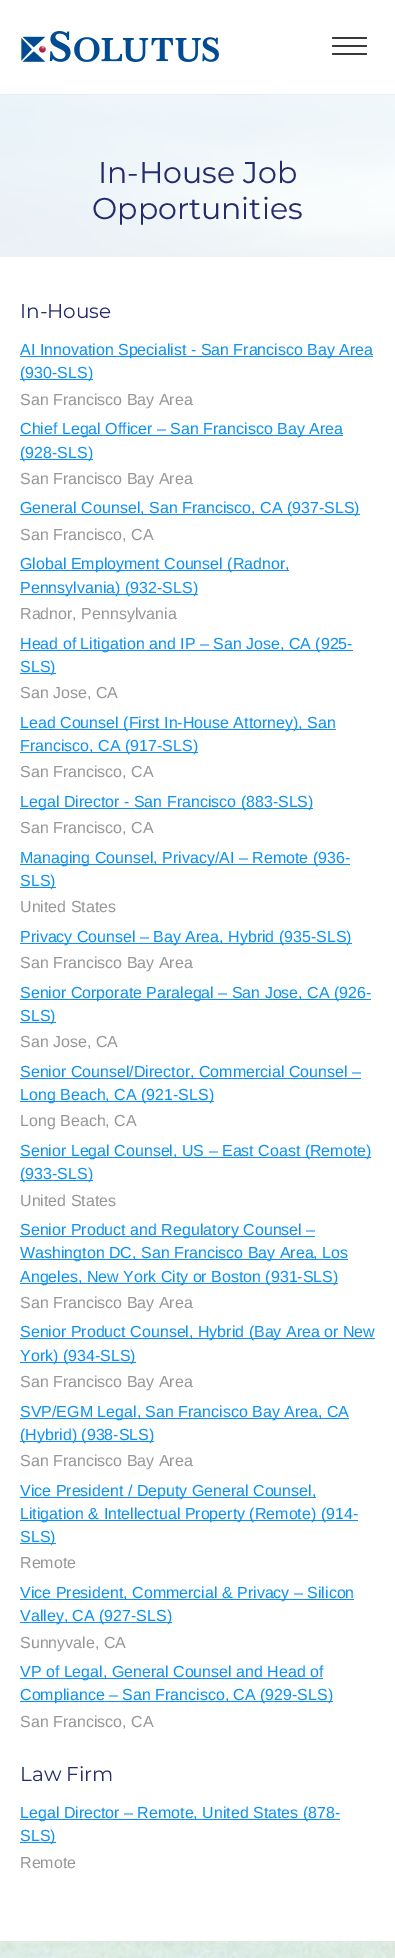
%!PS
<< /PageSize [395 1958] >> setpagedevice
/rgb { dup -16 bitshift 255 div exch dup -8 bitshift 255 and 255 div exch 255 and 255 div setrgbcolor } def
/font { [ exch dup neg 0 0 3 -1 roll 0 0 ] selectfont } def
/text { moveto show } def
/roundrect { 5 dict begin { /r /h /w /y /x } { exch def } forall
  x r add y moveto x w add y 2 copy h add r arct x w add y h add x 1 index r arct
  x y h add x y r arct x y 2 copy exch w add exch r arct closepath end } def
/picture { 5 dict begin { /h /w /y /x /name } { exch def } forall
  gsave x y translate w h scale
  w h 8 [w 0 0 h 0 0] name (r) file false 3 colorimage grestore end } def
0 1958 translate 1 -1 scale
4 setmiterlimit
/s1 { /Montserrat-Regular 30 font 16#242C6B rgb } def
/s2 { /Montserrat-Regular 20 font 16#242C6B rgb } def
/s3 { /LiberationSans-Regular 16 font 16#0C92F3 rgb } def
/s4 { /LiberationSans-Regular 16 font 16#969797 rgb } def
16#FFFFFF rgb
0 0 395 1958 rectfill
16#EBEDF4 rgb
0 94 395 1 rectfill
(pic1.raw) 21 31 198 31 picture
16#383838 rgb
332 45 35 2 1 roundrect fill
332 37 35 2 1 roundrect fill
332 53 35 2 1 roundrect fill
(pic2.raw) 0 95 395 1863 picture
s1
(In-House Job) 98 183 text
(Opportunities) 92 219 text
16#FFFFFF rgb
0 257 395 1684 rectfill
s2
(In-House) 20 318 text
16#0C92F3 rgb
20 356 353 1 rectfill
s3
(AI Innovation Specialist - San Francisco Bay Area) 20 355 text
20 379 73 1 rectfill
(\(930-SLS\)) 20 378 text
s4
(San Francisco Bay Area) 20 405 text
16#0C92F3 rgb
20 435 323 1 rectfill
(Chief Legal Officer – San Francisco Bay Area) 20 434 text
20 459 73 1 rectfill
(\(928-SLS\)) 20 458 text
s4
(San Francisco Bay Area) 20 484 text
16#0C92F3 rgb
20 514 340 1 rectfill
(General Counsel, San Francisco, CA \(937-SLS\)) 20 513 text
s4
(San Francisco, CA) 20 540 text
16#0C92F3 rgb
20 570 269 1 rectfill
(Global Employment Counsel \(Radnor,) 20 569 text
20 594 178 1 rectfill
(Pennsylvania\) \(932-SLS\)) 20 593 text
s4
(Radnor, Pennsylvania) 20 619 text
16#0C92F3 rgb
20 650 333 1 rectfill
(Head of Litigation and IP – San Jose, CA \(925-) 20 649 text
20 673 36 1 rectfill
(SLS\)) 20 672 text
s4
(San Jose, CA) 20 698 text
16#0C92F3 rgb
20 729 316 1 rectfill
(Lead Counsel \(First In-House Attorney\), San) 20 728 text
20 752 178 1 rectfill
(Francisco, CA \(917-SLS\)) 20 751 text
s4
(San Francisco, CA) 20 777 text
16#0C92F3 rgb
20 808 293 1 rectfill
(Legal Director - San Francisco \(883-SLS\)) 20 807 text
s4
(San Francisco, CA) 20 833 text
16#0C92F3 rgb
20 864 330 1 rectfill
(Managing Counsel, Privacy/AI – Remote \(936-) 20 863 text
20 887 36 1 rectfill
(SLS\)) 20 886 text
s4
(United States) 20 912 text
16#0C92F3 rgb
20 943 332 1 rectfill
(Privacy Counsel – Bay Area, Hybrid \(935-SLS\)) 20 942 text
s4
(San Francisco Bay Area) 20 968 text
16#0C92F3 rgb
20 999 351 1 rectfill
(Senior Corporate Paralegal – San Jose, CA \(926-) 20 998 text
20 1022 36 1 rectfill
(SLS\)) 20 1021 text
s4
(San Jose, CA) 20 1047 text
16#0C92F3 rgb
20 1078 341 1 rectfill
(Senior Counsel/Director, Commercial Counsel –) 20 1077 text
20 1101 194 1 rectfill
(Long Beach, CA \(921-SLS\)) 20 1100 text
s4
(Long Beach, CA) 20 1126 text
16#0C92F3 rgb
20 1157 351 1 rectfill
(Senior Legal Counsel, US – East Coast \(Remote\)) 20 1156 text
20 1180 73 1 rectfill
(\(933-SLS\)) 20 1179 text
s4
(United States) 20 1206 text
16#0C92F3 rgb
20 1236 295 1 rectfill
(Senior Product and Regulatory Counsel –) 20 1235 text
20 1259 328 1 rectfill
(Washington DC, San Francisco Bay Area, Los) 20 1258 text
20 1283 318 1 rectfill
(Angeles, New York City or Boston \(931-SLS\)) 20 1282 text
s4
(San Francisco Bay Area) 20 1308 text
16#0C92F3 rgb
20 1338 355 1 rectfill
(Senior Product Counsel, Hybrid \(Bay Area or New) 20 1337 text
20 1362 116 1 rectfill
(York\) \(934-SLS\)) 20 1361 text
s4
(San Francisco Bay Area) 20 1387 text
16#0C92F3 rgb
20 1418 329 1 rectfill
(SVP/EGM Legal, San Francisco Bay Area, CA) 20 1417 text
20 1441 134 1 rectfill
(\(Hybrid\) \(938-SLS\)) 20 1440 text
s4
(San Francisco Bay Area) 20 1466 text
16#0C92F3 rgb
20 1497 296 1 rectfill
(Vice President / Deputy General Counsel,) 20 1496 text
20 1520 338 1 rectfill
(Litigation & Intellectual Property \(Remote\) \(914-) 20 1519 text
20 1543 36 1 rectfill
(SLS\)) 20 1542 text
s4
(Remote) 20 1568 text
16#0C92F3 rgb
20 1599 334 1 rectfill
(Vice President, Commercial & Privacy – Silicon) 20 1598 text
20 1622 152 1 rectfill
(Valley, CA \(927-SLS\)) 20 1621 text
s4
(Sunnyvale, CA) 20 1648 text
16#0C92F3 rgb
20 1678 303 1 rectfill
(VP of Legal, General Counsel and Head of) 20 1677 text
20 1701 313 1 rectfill
(Compliance – San Francisco, CA \(929-SLS\)) 20 1700 text
s4
(San Francisco, CA) 20 1727 text
s2
(Law Firm) 20 1781 text
16#0C92F3 rgb
20 1819 320 1 rectfill
s3
(Legal Director – Remote, United States \(878-) 20 1818 text
20 1842 36 1 rectfill
(SLS\)) 20 1841 text
s4
(Remote) 20 1868 text
showpage
